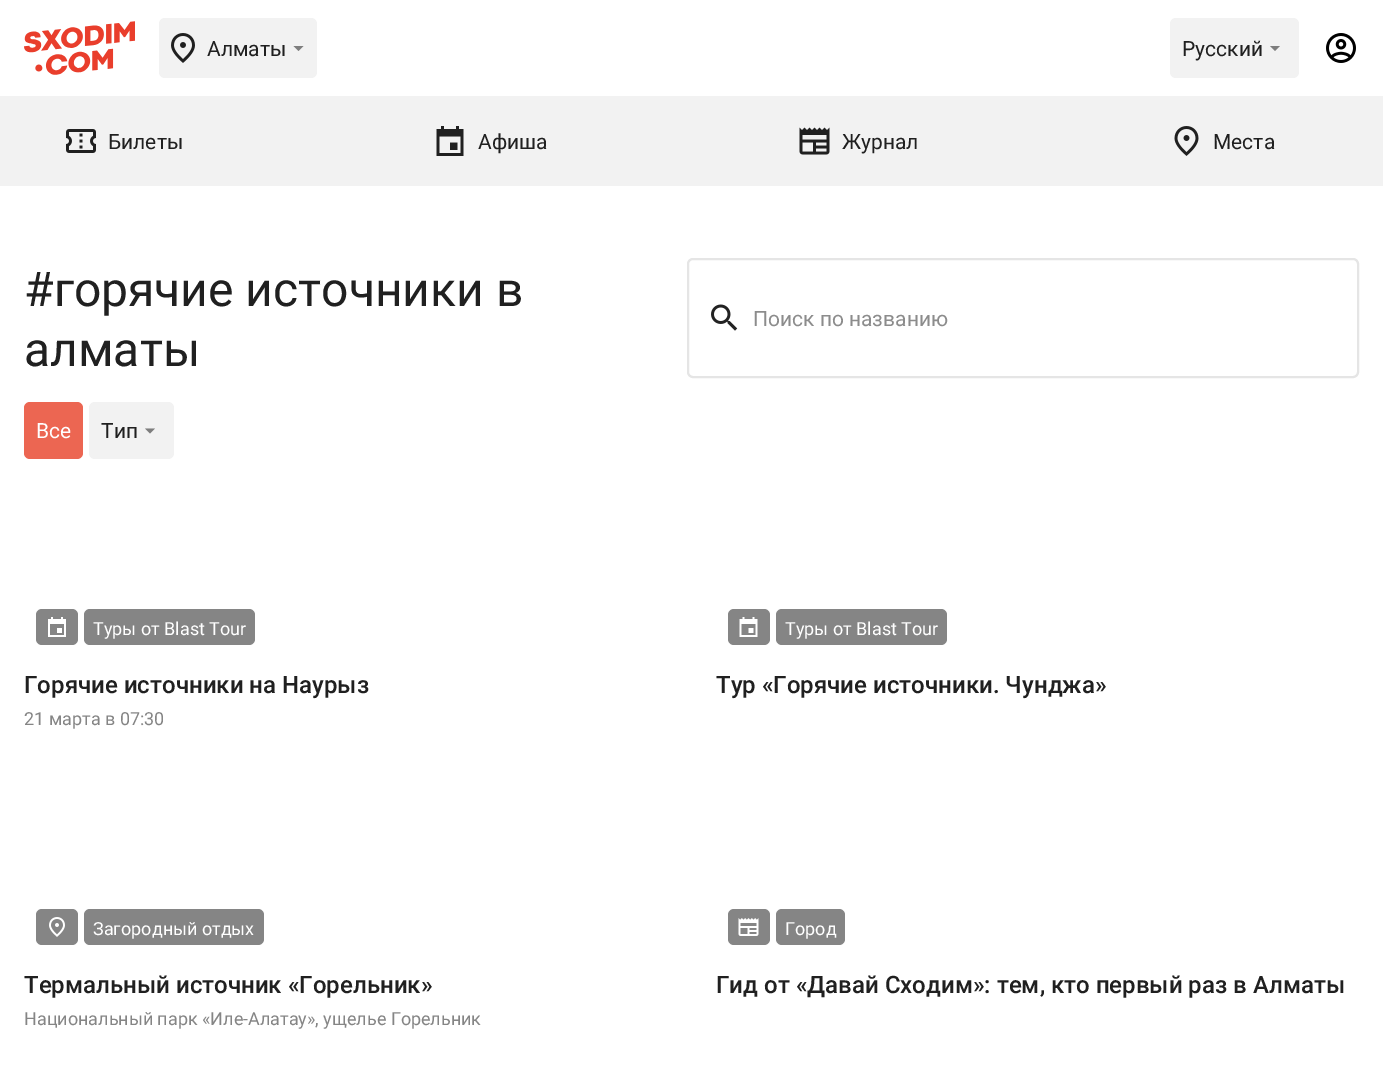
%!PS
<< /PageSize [1383 1087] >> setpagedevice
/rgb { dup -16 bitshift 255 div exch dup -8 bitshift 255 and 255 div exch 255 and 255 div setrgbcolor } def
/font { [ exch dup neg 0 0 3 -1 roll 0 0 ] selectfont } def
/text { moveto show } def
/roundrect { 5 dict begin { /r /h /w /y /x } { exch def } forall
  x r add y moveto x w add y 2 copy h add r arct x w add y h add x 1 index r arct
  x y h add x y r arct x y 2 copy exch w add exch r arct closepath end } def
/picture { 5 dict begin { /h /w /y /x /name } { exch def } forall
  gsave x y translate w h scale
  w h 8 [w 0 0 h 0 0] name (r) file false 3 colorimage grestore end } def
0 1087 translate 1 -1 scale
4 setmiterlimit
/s1 { /Roboto-Regular 21 font 16#202020 rgb } def
/s2 { /Roboto-Regular 48 font 16#202020 rgb } def
/s3 { /Roboto-Regular 21 font 16#8C8C8C rgb } def
/s4 { /Roboto-Regular 21 font 16#FFFFFF rgb } def
/s5 { /Roboto-Regular 18 font 16#FFFFFF rgb } def
/s6 { /Roboto-Medium 24 font 16#202020 rgb } def
/s7 { /Roboto-Regular 18 font 16#858585 rgb } def
16#FFFFFF rgb
0 0 1383 1087 rectfill
(pic1.raw) 24 21 111 54 picture
16#F2F2F2 rgb
159 18 158 60 6 roundrect fill
(pic2.raw) 171 33 24 30 picture
s1
(Алматы) 207 56 text
16#7E7E7E rgb
293.5 46 moveto 298.5 51 lineto 303.5 46 lineto closepath fill
16#F2F2F2 rgb
1170 18 129 60 6 roundrect fill
s1
(Русский) 1182 56 text
16#7E7E7E rgb
1270 46 moveto 1275 51 lineto 1280 46 lineto closepath fill
(pic3.raw) 1326 33 30 30 picture
16#F2F2F2 rgb
0 96 1383 90 rectfill
(pic4.raw) 66 129 30 24 picture
s1
(Билеты) 108 149 text
(pic5.raw) 436 126 28 30 picture
(Афиша) 478 149 text
(pic6.raw) 799 127 31 28 picture
(Журнал) 842 149 text
(pic7.raw) 1174 126 25 30 picture
(Места) 1213 149 text
s2
(#горячие источники в) 24 306 text
(алматы) 24 366 text
16#E5E5E5 rgb
2 setlinewidth
688 259 670 118 5 roundrect stroke
(pic8.raw) 711 304 27 27 picture
s3
(Поиск по названию) 753 326 text
16#EC6652 rgb
24 402 59 57 6 roundrect fill
s4
(Все) 36 438 text
16#F2F2F2 rgb
89 402 85 57 6 roundrect fill
s1
(Тип) 101 438 text
16#7E7E7E rgb
145 428.5 moveto 150 433.5 lineto 155 428.5 lineto closepath fill
16#858585 rgb
36 609 42 36 6 roundrect fill
(pic9.raw) 48 617 18 20 picture
84 609 171 36 6 roundrect fill
s5
(Туры от Blast Tour) 93 635 text
s6
(Горячие источники на Наурыз) 24 693 text
s7
(21 марта в 07:30) 24 725 text
728 609 42 36 6 roundrect fill
(pic10.raw) 739 617 19 20 picture
776 609 171 36 6 roundrect fill
s5
(Туры от Blast Tour) 785 635 text
s6
(Тур «Горячие источники. Чунджа») 716 693 text
16#858585 rgb
36 909 42 36 6 roundrect fill
(pic11.raw) 49 917 16 20 picture
84 909 180 36 6 roundrect fill
s5
(Загородный отдых) 93 935 text
s6
(Термальный источник «Горельник») 24 993 text
s7
(Национальный парк «Иле-Алатау», ущелье Горельник) 24 1025 text
728 909 42 36 6 roundrect fill
(pic12.raw) 738 918 21 18 picture
776 909 69 36 6 roundrect fill
s5
(Город) 785 935 text
s6
(Гид от «Давай Сходим»: тем, кто первый раз в Алматы) 716 993 text
showpage
